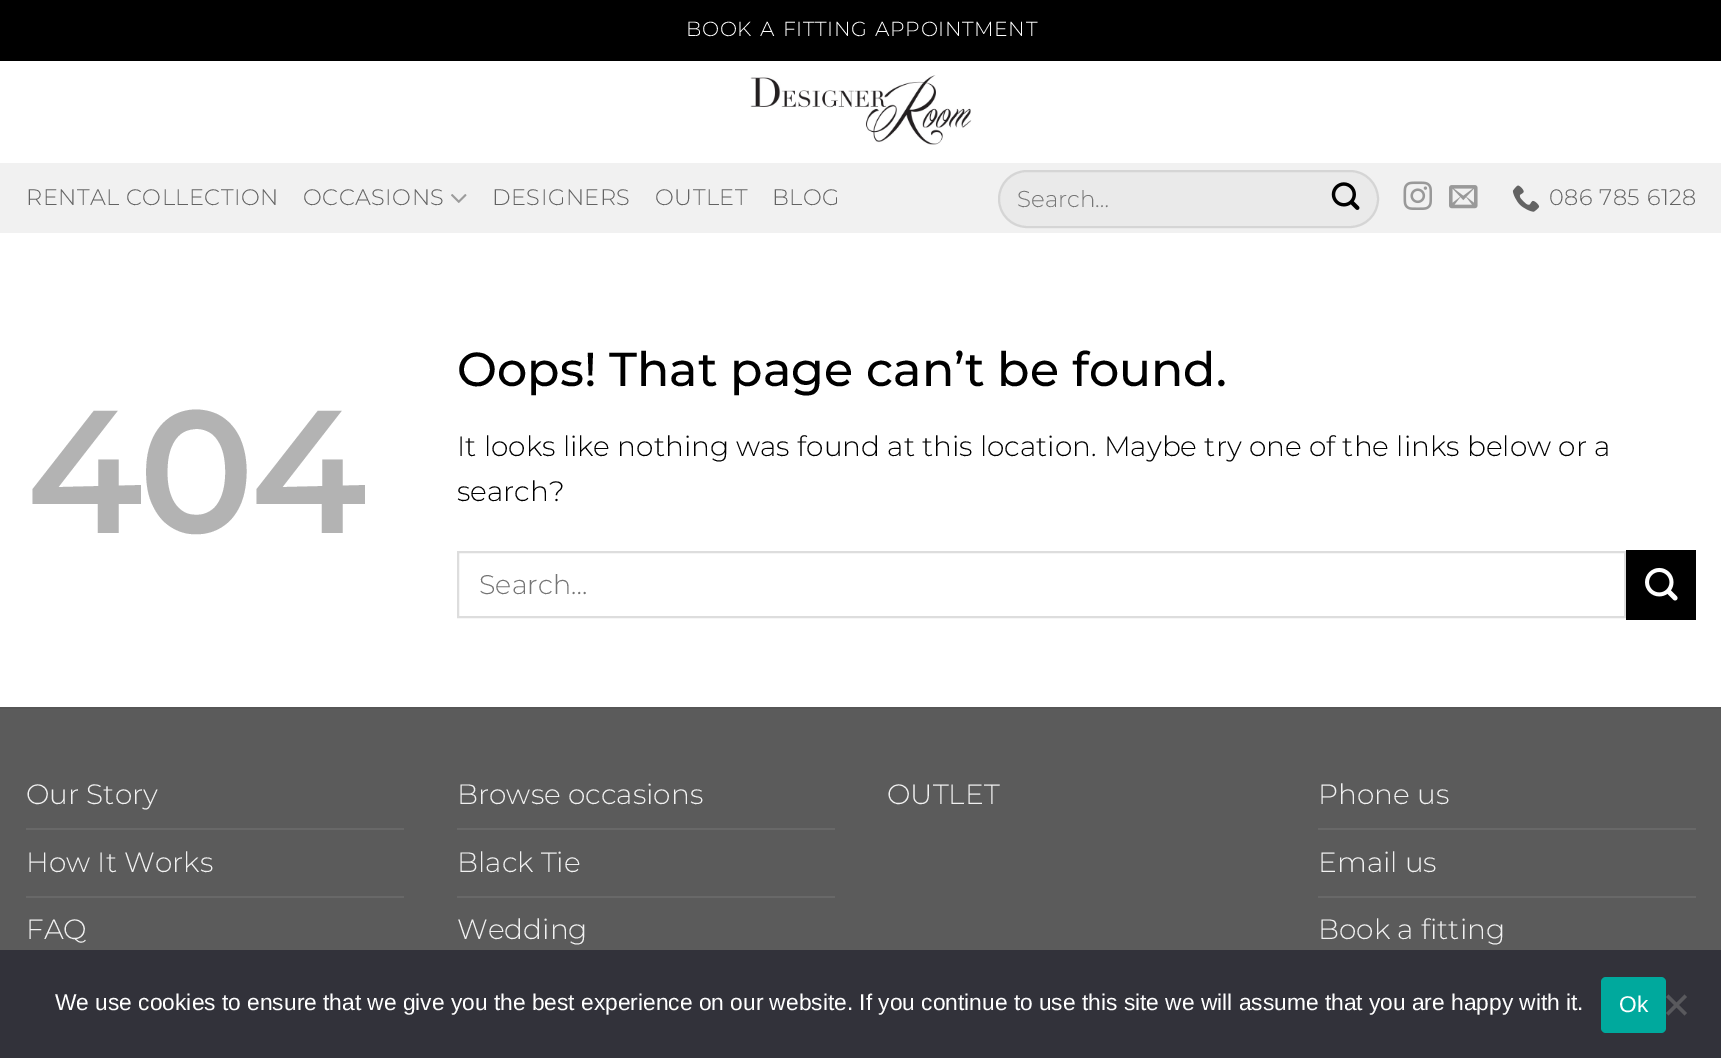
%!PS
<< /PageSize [1721 1058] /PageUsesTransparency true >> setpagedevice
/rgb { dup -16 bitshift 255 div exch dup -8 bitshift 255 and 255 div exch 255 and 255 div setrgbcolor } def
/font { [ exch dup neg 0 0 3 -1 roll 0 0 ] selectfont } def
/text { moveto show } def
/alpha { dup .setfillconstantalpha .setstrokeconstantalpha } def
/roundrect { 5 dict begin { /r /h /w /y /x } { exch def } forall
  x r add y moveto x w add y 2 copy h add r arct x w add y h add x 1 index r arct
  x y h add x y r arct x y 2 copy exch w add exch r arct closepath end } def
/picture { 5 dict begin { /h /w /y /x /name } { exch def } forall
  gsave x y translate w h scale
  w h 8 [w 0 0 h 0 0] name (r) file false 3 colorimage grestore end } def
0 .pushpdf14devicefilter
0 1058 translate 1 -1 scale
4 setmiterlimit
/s1 { /Montserrat-Light 23 font 16#757575 rgb } def
/s2 { /Montserrat-Bold 168 font 16#B3B3B3 rgb } def
/s3 { /Montserrat-Medium 47.6 font 16#000000 rgb } def
/s4 { /Montserrat-Light 28 font 16#000000 rgb } def
/s5 { /Montserrat-Light 27 font 16#757575 rgb } def
/s6 { /Montserrat-Light 28 font 16#F1F1F1 rgb } def
/s7 { /LiberationSans-Regular 22.75 font 16#FFFFFF rgb } def
16#FFFFFF rgb
0 0 1721 1058 rectfill
16#000000 rgb
0 0 1721 61 rectfill
/Montserrat-Light 20.4 font
16#FFFFFF rgb
686 36 moveto 2 0 32 0.6 0 (BOOK A FITTING APPOINTMENT) awidthshow
(pic1.raw) 750 75 222 70 picture
16#F1F1F1 rgb
0 163 1721 70 rectfill
/Montserrat-Light 22.4 font
16#636363 rgb
26 205 moveto 0.5 0 (RENTAL COLLECTION) ashow
303 205 moveto 0.5 0 (OCCASIONS) ashow
(pic2.raw) 451 194 16 9 picture
492 205 moveto 0.5 0 (DESIGNERS) ashow
655 205 moveto 0.5 0 (OUTLET) ashow
772 205 moveto 0.5 0 (BLOG) ashow
16#EAEAEA rgb
998 170 381 58 29 roundrect fill
0.09 alpha
16#000000 rgb
2 setlinewidth
999 171 379 56 28 roundrect stroke
1 alpha
s1
(Search…) 1017 207 text
(pic3.raw) 1331 182 29 28 picture
(pic4.raw) 1403 181 29 29 picture
(pic5.raw) 1449 185 29 24 picture
(pic6.raw) 1512 185 28 27 picture
/Montserrat-Light 22.4 font
16#636363 rgb
1549 205 moveto 0.5 0 (086 785 6128) ashow
s2
(404) 26 533 text
s3
(Oops! That page can’t be found.) 457 386 text
s4
(It looks like nothing was found at this location. Maybe try one of the links below or a) 457 456 text
(search?) 457 501 text
16#DDDDDD rgb
458 552 1167 65 rectstroke
s5
(Search…) 479 594 text
16#000000 rgb
1626 550 70 70 rectfill
(pic7.raw) 1645 567 33 34 picture
16#5B5B5B rgb
0 709 1721 241 rectfill
16#565656 rgb
0 707 1721 2 rectfill
s6
(Our Story) 26 804 text
16#686868 rgb
26 828 378 2 rectfill
s6
(How It Works) 26 872 text
16#686868 rgb
26 896 378 2 rectfill
s6
(FAQ) 26 939 text
(Browse occasions) 457 804 text
16#686868 rgb
457 828 378 2 rectfill
s6
(Black Tie) 457 872 text
16#686868 rgb
457 896 378 2 rectfill
s6
(Wedding) 457 939 text
(OUTLET) 887 804 text
(Phone us) 1318 804 text
16#686868 rgb
1318 828 378 2 rectfill
s6
(Email us) 1318 872 text
16#686868 rgb
1318 896 378 2 rectfill
s6
(Book a fitting) 1318 939 text
16#32323A rgb
0 950 1721 108 rectfill
s7
(We use cookies to ensure that we give you the best experience on our website. If you continue to use this site we will assume that you are happy with it.) 55 1010 text
16#00A99D rgb
1601 977 65 56 5 roundrect fill
s7
(Ok) 1619 1012 text
16#59595D rgb
1684.5 994.5 moveto 1687 997 lineto 1668.5 1015.5 lineto 1666 1013 lineto closepath fill
1666 997 moveto 1668.5 994.5 lineto 1687 1013 lineto 1684.5 1015.5 lineto closepath fill
.poppdf14devicefilter showpage
